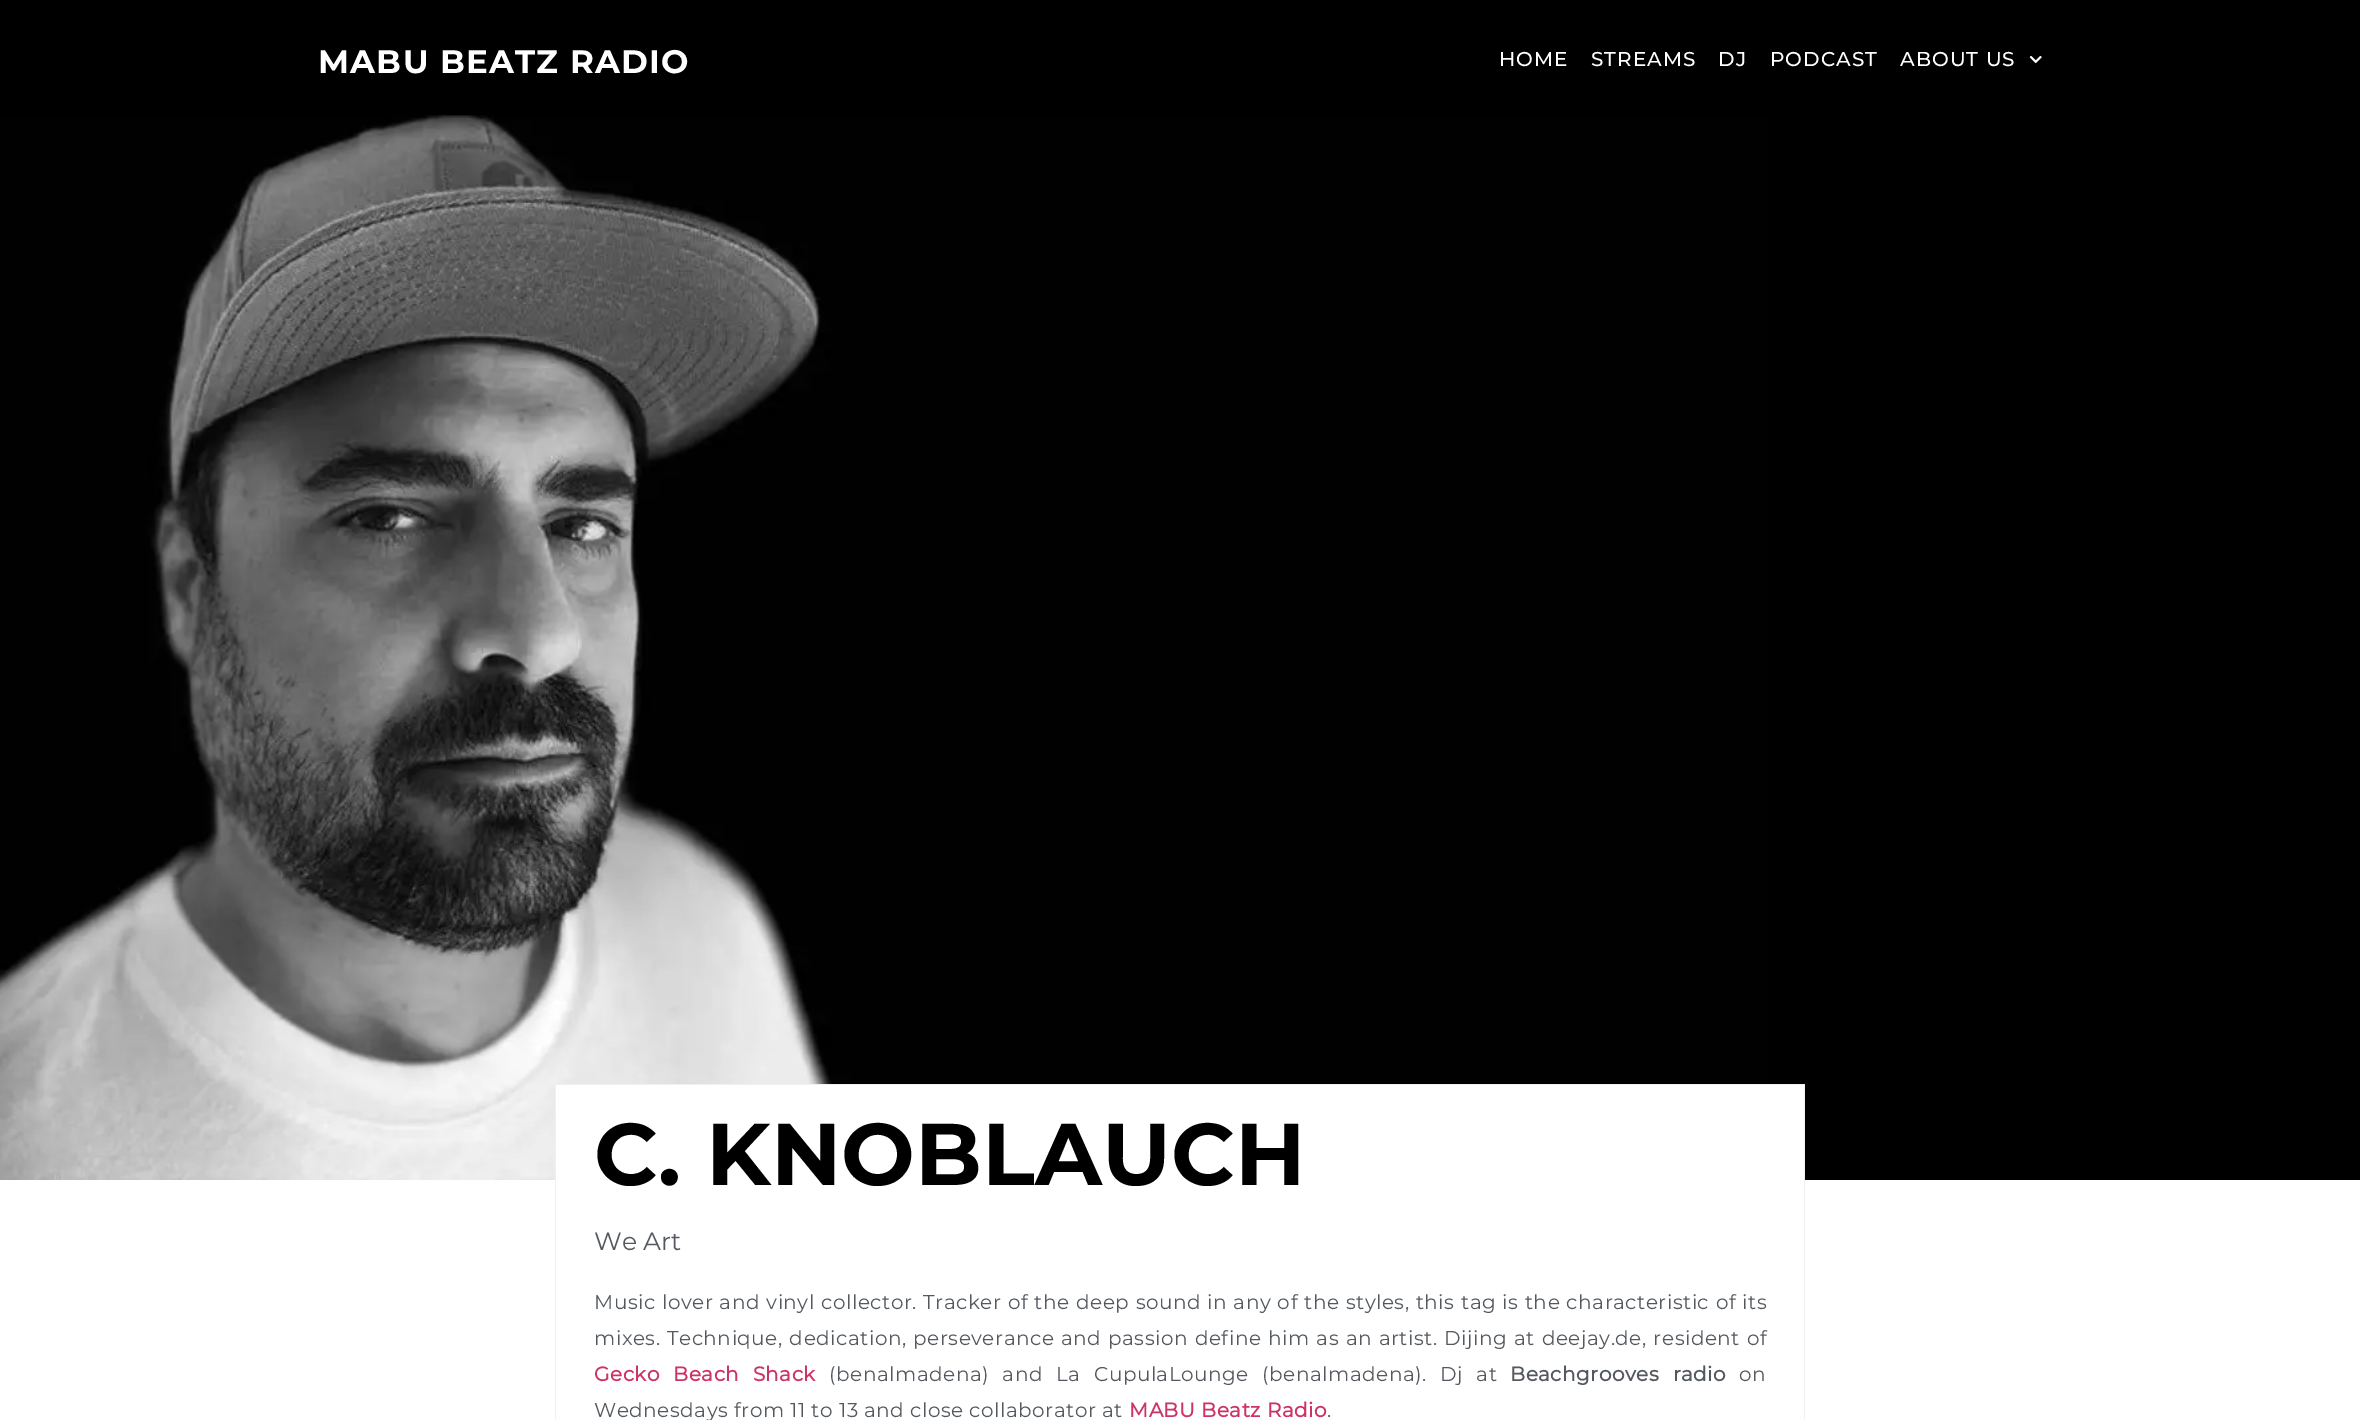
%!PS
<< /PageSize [2360 1420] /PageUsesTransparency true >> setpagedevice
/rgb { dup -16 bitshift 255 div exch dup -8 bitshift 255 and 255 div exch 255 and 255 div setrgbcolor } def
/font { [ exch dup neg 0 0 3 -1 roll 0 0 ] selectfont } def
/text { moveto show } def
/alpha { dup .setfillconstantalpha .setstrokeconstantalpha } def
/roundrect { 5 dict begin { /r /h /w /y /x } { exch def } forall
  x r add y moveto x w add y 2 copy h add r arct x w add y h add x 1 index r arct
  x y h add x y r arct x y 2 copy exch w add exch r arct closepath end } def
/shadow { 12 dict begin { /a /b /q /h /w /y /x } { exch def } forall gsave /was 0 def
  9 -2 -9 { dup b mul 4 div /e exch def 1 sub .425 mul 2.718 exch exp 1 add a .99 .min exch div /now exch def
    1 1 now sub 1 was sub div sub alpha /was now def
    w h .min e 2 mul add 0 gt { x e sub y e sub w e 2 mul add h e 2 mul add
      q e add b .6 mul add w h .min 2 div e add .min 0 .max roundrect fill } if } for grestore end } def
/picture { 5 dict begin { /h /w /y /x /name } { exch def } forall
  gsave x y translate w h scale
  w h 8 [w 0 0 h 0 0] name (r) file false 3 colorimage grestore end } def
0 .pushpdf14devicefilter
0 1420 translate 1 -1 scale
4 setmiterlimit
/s1 { /Montserrat-Bold 87.5 font 16#000000 rgb } def
/s2 { /Montserrat-Regular 25 font 16#54595F rgb } def
16#FFFFFF rgb
0 0 2360 1420 rectfill
(pic2.raw) 0 115 2360 1065 picture
16#000000 rgb
0 0 2360 115 0 5 0.5 shadow
0 0 2360 115 rectfill
/Montserrat-Bold 32.5 font
16#FFFFFF rgb
318 73 moveto 1.25 0 (MABU BEATZ RADIO) ashow
/Montserrat-Medium 20 font
1499 66 moveto 1 0 (HOME) ashow
1591 66 moveto 1 0 (STREAMS) ashow
1718 66 moveto 1 0 (DJ) ashow
1770 66 moveto 1 0 (PODCAST) ashow
1900 66 moveto 1 0 (ABOUT US) ashow
(pic1.raw) 2029 55 13 9 picture
556 1085 1248 95 rectfill
16#F0F0F0 rgb
555 1084 1250 1 rectfill
1804 1084 1 336 rectfill
555 1084 1 336 rectfill
s1
(C. KNOBLAUCH) 594 1185 text
s2
(We Art) 594 1250 text
/Montserrat-Regular 20 font
594 1309 moveto 0.6 0 32 0.5 0 (Music lover and vinyl collector. Tracker of the deep sound in any of the styles, this tag is the characteristic of its) awidthshow
594 1345 moveto 1 0 32 0.5 0 (mixes. Technique, dedication, perseverance and passion define him as an artist. Dijing at deejay.de, resident of) awidthshow
/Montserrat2-Bold 20 font
16#CC3366 rgb
594 1381 moveto 7.5 0 32 0.5 0 (Gecko Beach Shack) awidthshow
/Montserrat-Regular 20 font
16#54595F rgb
829 1381 moveto 7.5 0 32 0.5 0 (\(benalmadena\) and La CupulaLounge \(benalmadena\). Dj at) awidthshow
/Montserrat2-Bold 20 font
1510 1381 moveto 7.5 0 32 0.5 0 (Beachgrooves radio) awidthshow
/Montserrat-Regular 20 font
1739 1381 moveto 0.5 0 (on) ashow
594 1417 moveto 0.5 0 (Wednesdays from 11 to 13 and close collaborator at) ashow
/Montserrat2-Bold 20 font
16#CC3366 rgb
1129 1417 moveto 0.5 0 (MABU Beatz Radio) ashow
/Montserrat-Regular 20 font
16#54595F rgb
1327 1417 moveto 0.5 0 (.) ashow
.poppdf14devicefilter showpage
